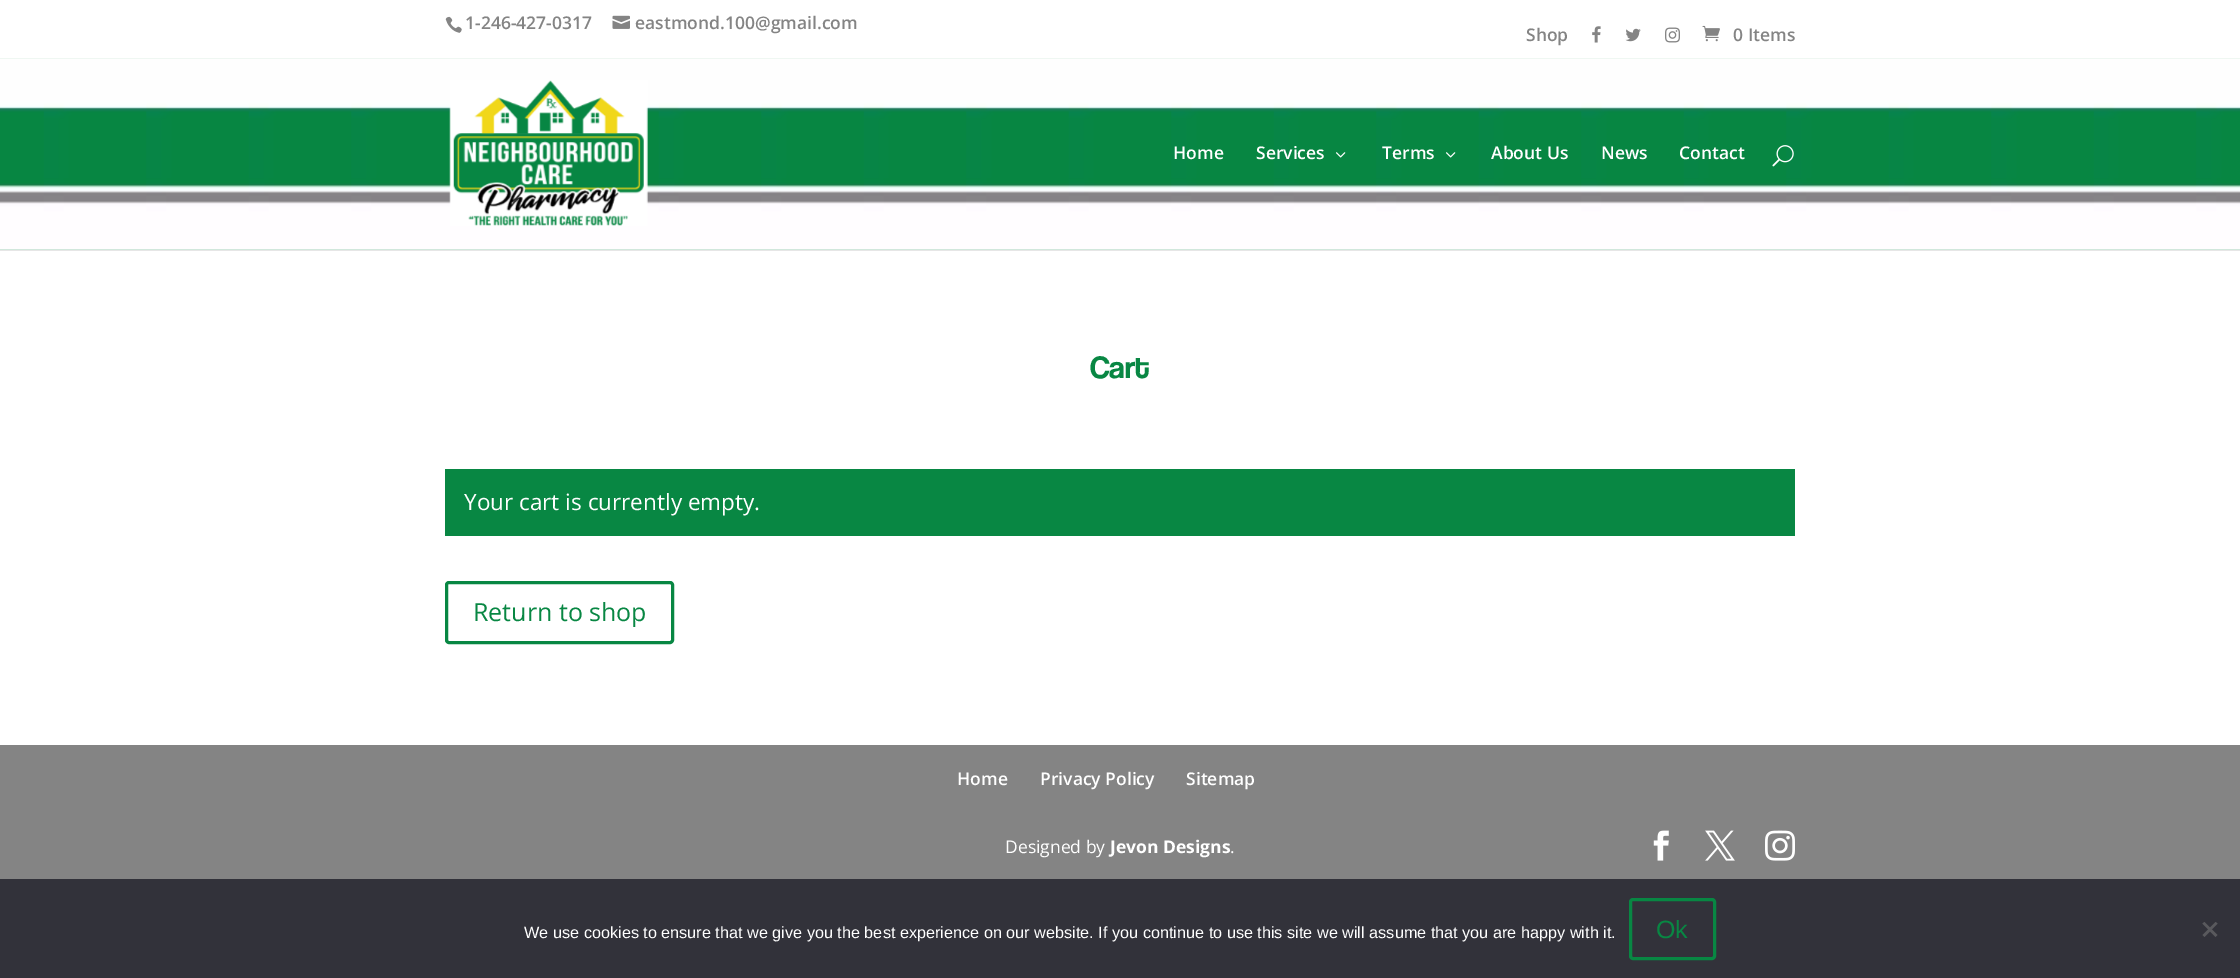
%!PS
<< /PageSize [2240 978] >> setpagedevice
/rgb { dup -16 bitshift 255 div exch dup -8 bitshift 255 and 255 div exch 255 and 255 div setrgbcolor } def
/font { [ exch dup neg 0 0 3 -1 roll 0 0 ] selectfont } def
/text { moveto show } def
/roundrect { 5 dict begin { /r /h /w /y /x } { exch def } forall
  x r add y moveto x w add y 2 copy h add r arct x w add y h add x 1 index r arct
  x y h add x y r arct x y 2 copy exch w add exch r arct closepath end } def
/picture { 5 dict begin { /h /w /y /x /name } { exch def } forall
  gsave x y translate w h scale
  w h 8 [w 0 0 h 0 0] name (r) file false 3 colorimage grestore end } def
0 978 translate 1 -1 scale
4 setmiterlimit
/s1 { /OpenSans-SemiBold 17.5 font 16#848484 rgb } def
/s2 { /OpenSans-SemiBold 17.5 font 16#FFFFFF rgb } def
/s3 { /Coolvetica-Regular 32 font 16#088743 rgb } def
/s4 { /OpenSans-Regular 22.5 font 16#FFFFFF rgb } def
/s5 { /OpenSans-Regular 25 font 16#088743 rgb } def
/s6 { /OpenSans-Regular 17.5 font 16#FFFFFF rgb } def
/s7 { /OpenSans-Bold 17.5 font 16#FFFFFF rgb } def
/s8 { /LiberationSans-Regular 16.25 font 16#FFFFFF rgb } def
/s9 { /LiberationSans-Regular 25 font 16#088743 rgb } def
16#FFFFFF rgb
0 0 2240 978 rectfill
(pic1.raw) 445 16 17 17 picture
s1
(1-246-427-0317) 465 29 text
(pic2.raw) 612 15 18 14 picture
(eastmond.100@gmail.com) 635 29 text
(Shop) 1526 41 text
(pic3.raw) 1592 26 9 17 picture
(pic4.raw) 1625 28 16 14 picture
(pic5.raw) 1665 27 15 16 picture
(pic6.raw) 1702 25 18 17 picture
(0 Items) 1733 41 text
16#E6E6E6 rgb
0 250 2240 1 rectfill
(pic7.raw) 0 58 2240 192 picture
(pic8.raw) 449 80 199 146 picture
s2
(Home) 1173 159 text
(Services) 1256 159 text
(pic9.raw) 1336 152 10 6 picture
(Terms) 1382 159 text
(pic9.raw) 1446 152 10 6 picture
(About Us) 1491 159 text
(News) 1601 159 text
(Contact) 1679 159 text
(pic10.raw) 1772 145 22 22 picture
s3
(Cart) 1090 378 text
445 469 1350 67 rectfill
s4
(Your cart is currently empty.) 464 510 text
16#088743 rgb
3 setlinewidth
446.5 582.5 226 60 2.5 roundrect stroke
s5
(Return to shop) 473 621 text
16#848484 rgb
0 745 2240 134 rectfill
s2
(Home) 957 785 text
(Privacy Policy) 1040 785 text
(Sitemap) 1186 785 text
s6
(Designed by) 1005 853 text
s7
(Jevon Designs) 1110 853 text
s6
(.) 1230 853 text
(pic11.raw) 1653 830 16 31 picture
(pic12.raw) 1705 830 30 31 picture
(pic13.raw) 1765 830 30 31 picture
16#32323A rgb
0 879 2240 99 rectfill
s8
(We use cookies to ensure that we give you the best experience on our website. If you continue to use this site we will assume that you are happy with it.) 524 938 text
16#088743 rgb
1630.5 899.5 84 59 2.5 roundrect stroke
s9
(Ok) 1656 938 text
16#59595D rgb
2215.5 922 moveto 2217.5 923.5 lineto 2204.5 937 lineto 2202.5 935 lineto closepath fill
2202.5 923.5 moveto 2204.5 922 lineto 2217.5 935 lineto 2215.5 937 lineto closepath fill
showpage
